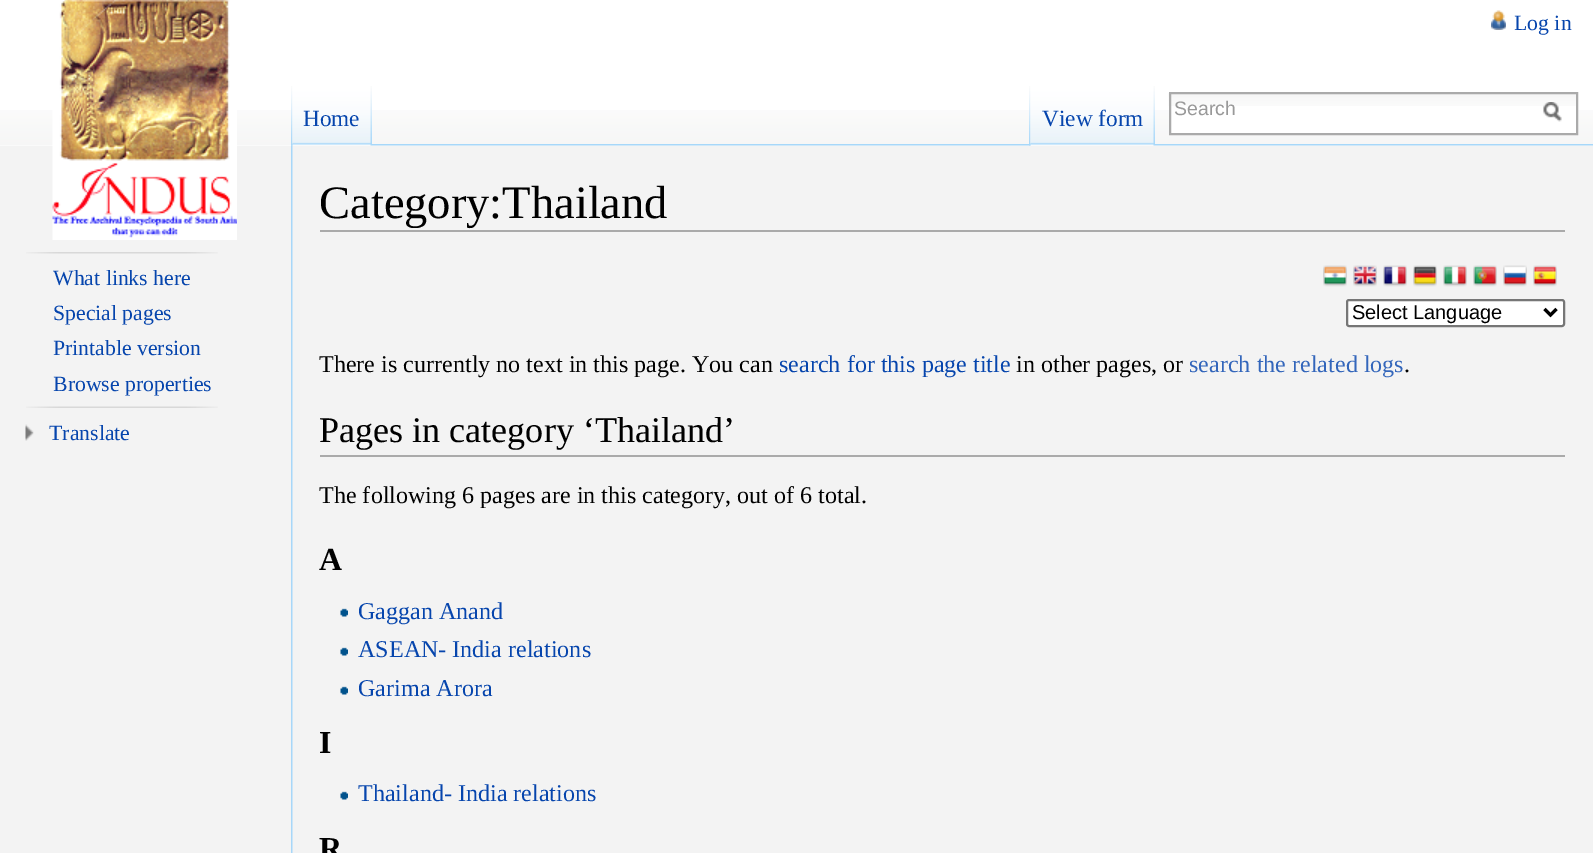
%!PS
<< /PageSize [1593 853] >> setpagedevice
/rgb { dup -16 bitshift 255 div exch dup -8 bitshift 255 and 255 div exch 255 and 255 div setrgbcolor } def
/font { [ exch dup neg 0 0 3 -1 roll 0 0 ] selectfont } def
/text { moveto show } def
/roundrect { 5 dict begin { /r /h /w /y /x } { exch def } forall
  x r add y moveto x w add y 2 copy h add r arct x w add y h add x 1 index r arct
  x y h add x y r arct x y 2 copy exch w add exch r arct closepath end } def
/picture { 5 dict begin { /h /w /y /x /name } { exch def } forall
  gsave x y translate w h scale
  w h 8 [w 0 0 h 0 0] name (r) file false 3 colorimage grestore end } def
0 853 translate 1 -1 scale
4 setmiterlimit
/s1 { /LiberationSerif-Regular 21.75 font 16#0645AD rgb } def
/s2 { /LiberationSerif-Regular 23.25 font 16#0645AD rgb } def
/s3 { /LiberationSans-Regular 19.5 font 16#999999 rgb } def
/s4 { /LiberationSerif-Regular 46.5 font 16#000000 rgb } def
/s5 { /LiberationSans-Regular 20 font 16#000000 rgb } def
/s6 { /LiberationSerif-Regular 24.1 font 16#000000 rgb } def
/s7 { /LiberationSerif-Regular 24.1 font 16#0645AD rgb } def
/s8 { /LiberationSerif-Regular 24.1 font 16#3366BB rgb } def
/s9 { /LiberationSerif-Regular 36.1 font 16#000000 rgb } def
/s10 { /LiberationSerif-Bold 32 font 16#000000 rgb } def
16#F3F3F3 rgb
0 0 1593 853 rectfill
16#FFFFFF rgb
0 0 1593 146 rectfill
(pic1.raw) 0 110 1593 36 picture
(pic2.raw) 1491 10 15 20 picture
s1
(Log in) 1514 30 text
(pic10.raw) 291 144 1302 2 picture
(pic15.raw) 291 145 2 708 picture
(pic3.raw) 291 86 2 60 picture
16#F3F3F3 rgb
293 145 79 1 rectfill
(pic4.raw) 292 72 80 74 picture
(pic5.raw) 370 86 2 60 picture
s2
(Home) 303 126 text
(pic6.raw) 1029 86 2 60 picture
16#F3F3F3 rgb
1031 145 124 1 rectfill
(pic7.raw) 1030 72 125 74 picture
(pic5.raw) 1153 86 2 60 picture
s2
(View form) 1042 126 text
16#FFFFFF rgb
1171 110 405 23 rectfill
(pic8.raw) 1168 93 408 13 picture
16#AAAAAA rgb
2 setlinewidth
1170 93 407 41 rectstroke
s3
(Search) 1174 115 text
(pic9.raw) 1543 102 19 20 picture
(pic11.raw) 52 0 185 240 picture
(pic12.raw) 26 252 192 2 picture
s1
(What links here) 53 285 text
(Special pages) 53 320 text
(Printable version) 53 355 text
(Browse properties) 53 391 text
(pic13.raw) 26 406 192 2 picture
(pic14.raw) 25 424 9 17 picture
(Translate) 49 440 text
16#AAAAAA rgb
320 230 1245 2 rectfill
s4
(Category:Thailand) 319 218 text
(pic16.raw) 1323 265 24 22 picture
(pic17.raw) 1353 265 24 22 picture
(pic18.raw) 1383 265 24 22 picture
(pic19.raw) 1413 265 24 22 picture
(pic20.raw) 1443 265 24 22 picture
(pic21.raw) 1473 265 24 22 picture
(pic22.raw) 1503 265 24 22 picture
(pic23.raw) 1533 265 24 22 picture
16#FFFFFF rgb
1347 300 217 26 2 roundrect gsave fill grestore
16#767676 rgb
stroke
16#000000 rgb
3 setlinewidth
1544.5 309 moveto 1550.5 315 lineto 1556.5 309 lineto stroke
s5
(Select Language) 1352 319 text
s6
(There is currently no text in this page. You can) 319 372 text
s7
(search for this page title) 779 372 text
s6
(in other pages, or) 1016 372 text
s8
(search the related logs) 1189 372 text
s6
(.) 1404 372 text
16#AAAAAA rgb
320 455 1245 2 rectfill
s9
(Pages in category ‘Thailand’) 319 442 text
s6
(The following 6 pages are in this category, out of 6 total.) 319 503 text
s10
(A) 319 570 text
(pic24.raw) 340 608 8 9 picture
s7
(Gaggan Anand) 358 619 text
(pic24.raw) 340 647 8 9 picture
(ASEAN- India relations) 358 657 text
(pic24.raw) 340 686 8 9 picture
(Garima Arora) 358 696 text
s10
(I) 319 753 text
(pic24.raw) 340 791 8 9 picture
s7
(Thailand- India relations) 358 801 text
s10
(R) 319 859 text
showpage
